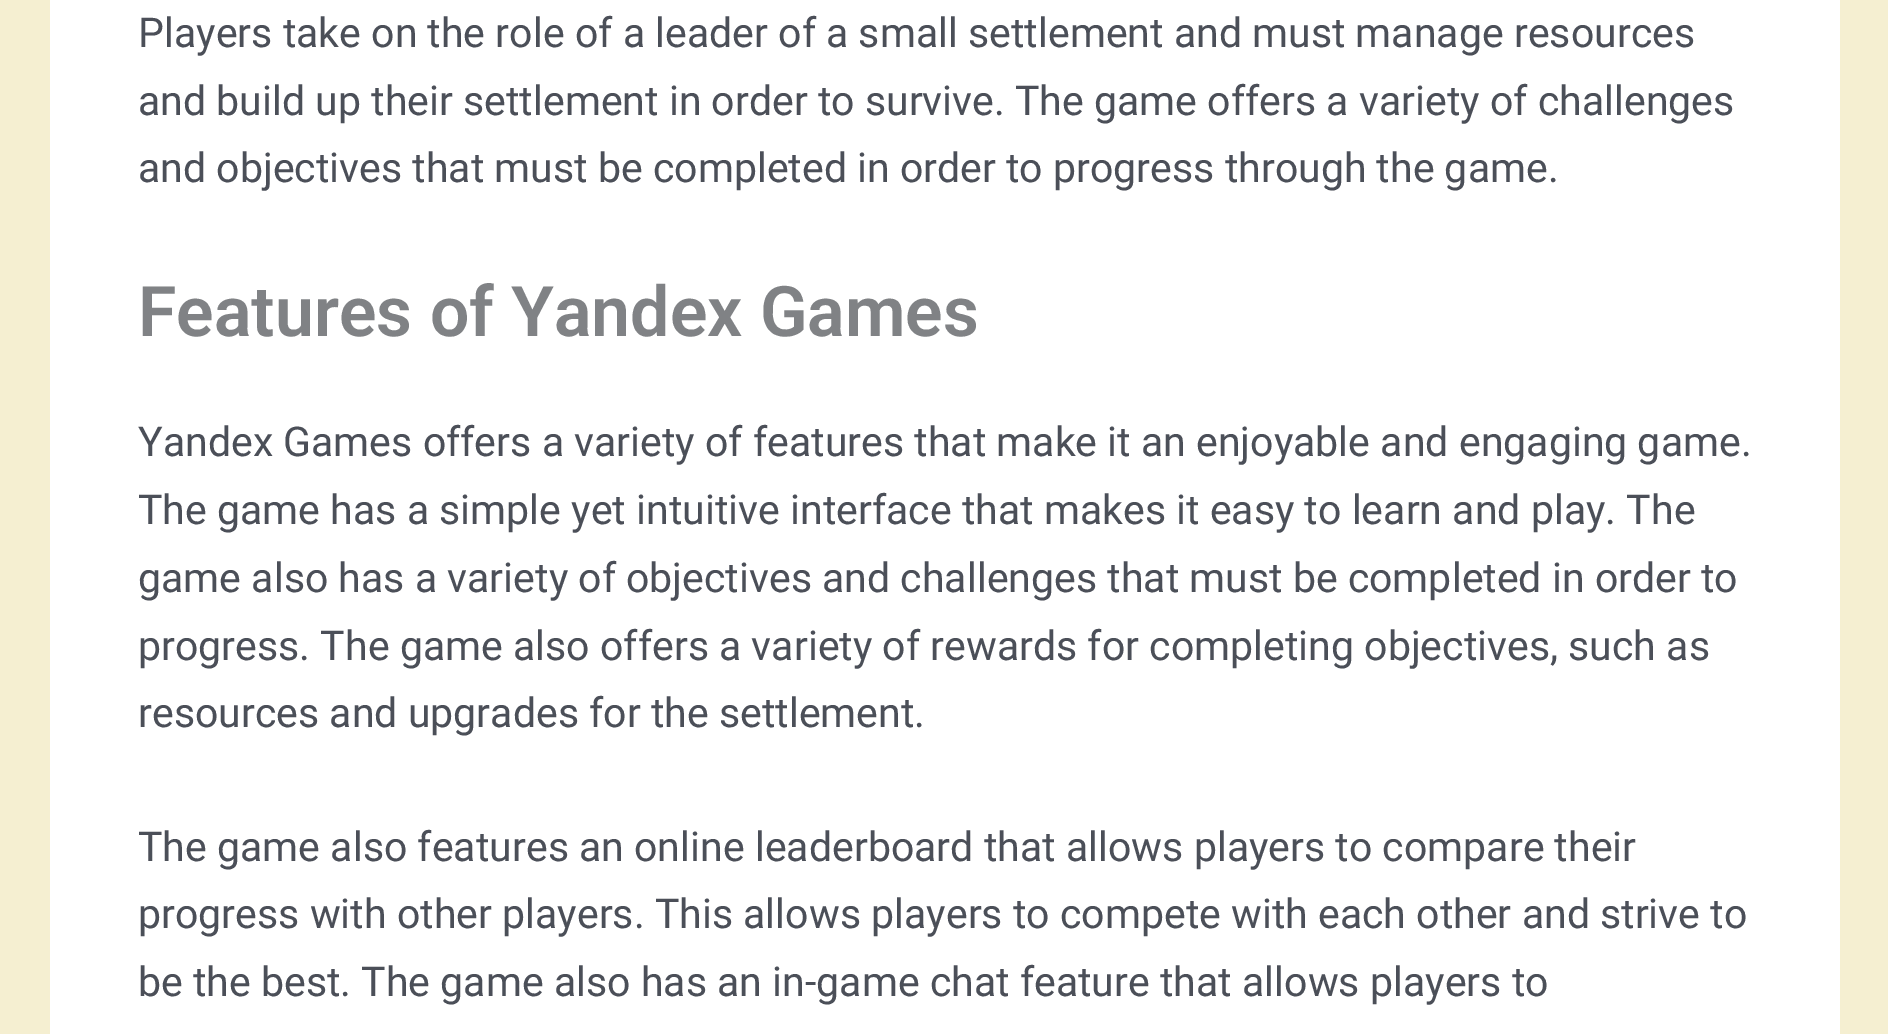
%!PS
<< /PageSize [1888 1034] >> setpagedevice
/rgb { dup -16 bitshift 255 div exch dup -8 bitshift 255 and 255 div exch 255 and 255 div setrgbcolor } def
/font { [ exch dup neg 0 0 3 -1 roll 0 0 ] selectfont } def
/text { moveto show } def
0 1034 translate 1 -1 scale
4 setmiterlimit
/s1 { /Roboto-Regular 41.05 font 16#4B4F58 rgb } def
/s2 { /Roboto-SemiBold 69.75 font 16#808285 rgb } def
16#F5EFD1 rgb
0 0 1888 1034 rectfill
16#FFFFFF rgb
50 0 1790 1034 rectfill
s1
(Players take on the role of a leader of a small settlement and must manage resources) 138 47 text
(and build up their settlement in order to survive. The game offers a variety of challenges) 138 115 text
(and objectives that must be completed in order to progress through the game.) 138 182 text
s2
(Features of Yandex Games) 138 336 text
s1
(Yandex Games offers a variety of features that make it an enjoyable and engaging game.) 138 456 text
(The game has a simple yet intuitive interface that makes it easy to learn and play. The) 138 524 text
(game also has a variety of objectives and challenges that must be completed in order to) 138 592 text
(progress. The game also offers a variety of rewards for completing objectives, such as) 138 660 text
(resources and upgrades for the settlement.) 138 727 text
(The game also features an online leaderboard that allows players to compare their) 138 861 text
(progress with other players. This allows players to compete with each other and strive to) 138 928 text
(be the best. The game also has an in-game chat feature that allows players to) 138 996 text
showpage
